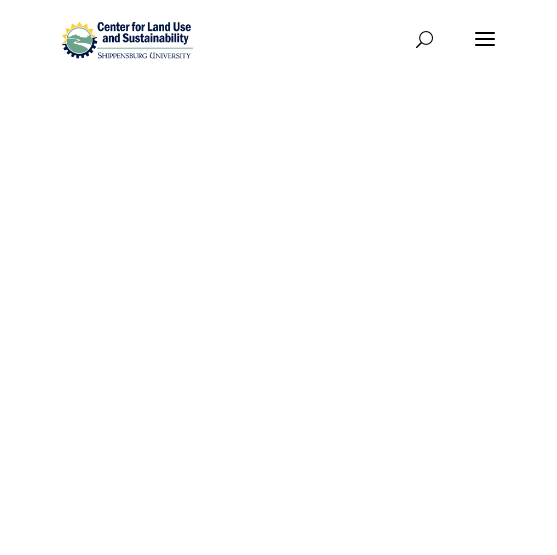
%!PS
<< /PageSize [557 555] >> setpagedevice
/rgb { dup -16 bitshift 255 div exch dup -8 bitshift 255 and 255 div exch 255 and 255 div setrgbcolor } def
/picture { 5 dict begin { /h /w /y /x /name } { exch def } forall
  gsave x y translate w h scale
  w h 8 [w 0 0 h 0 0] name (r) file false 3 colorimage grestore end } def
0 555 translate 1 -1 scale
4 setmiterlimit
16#FFFFFF rgb
0 0 557 555 rectfill
(pic1.raw) 62 21 132 38 picture
(pic2.raw) 416 31 17 18 picture
(pic3.raw) 475 32 20 14 picture
showpage
